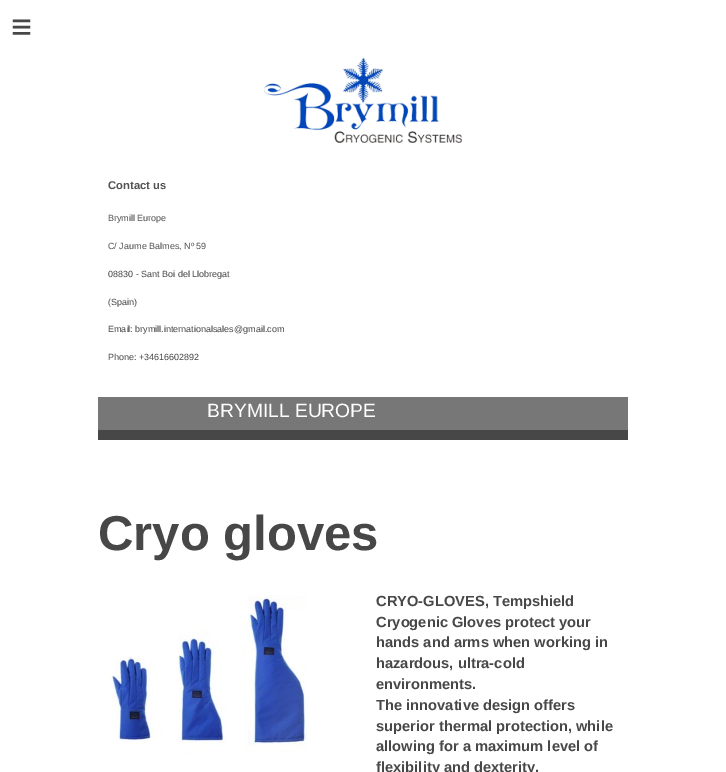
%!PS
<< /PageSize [726 772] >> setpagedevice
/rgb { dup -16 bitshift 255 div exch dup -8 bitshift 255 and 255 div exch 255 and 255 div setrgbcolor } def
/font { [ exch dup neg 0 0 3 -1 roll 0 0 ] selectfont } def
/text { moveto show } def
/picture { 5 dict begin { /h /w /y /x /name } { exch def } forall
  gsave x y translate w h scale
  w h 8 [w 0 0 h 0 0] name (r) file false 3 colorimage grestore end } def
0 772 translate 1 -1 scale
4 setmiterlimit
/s1 { /LiberationSans-Bold 11.25 font 16#535353 rgb } def
/s2 { /LiberationSans-Regular 9 font 16#535353 rgb } def
/s3 { /LiberationSans-Regular 9 font 16#474747 rgb } def
/s4 { /LiberationSans-Regular 19.25 font 16#FFFFFF rgb } def
/s5 { /LiberationSans-Bold 49 font 16#474747 rgb } def
/s6 { /LiberationSans-Bold 14.7 font 16#474747 rgb } def
16#FFFFFF rgb
0 0 726 772 rectfill
/LiberationSans-Bold 36 font
16#474747 rgb
11 39 moveto 10 0 (≡) ashow
(pic1.raw) 264 58 198 85 picture
s1
(Contact us) 108 189 text
s2
(Brymill Europe) 108 221 text
(C/ Jaume Balmes, Nº 59) 108 249 text
s3
(08830 - Sant Boi del Llobregat) 108 277 text
(\(Spain\)) 108 305 text
(Email: brymill.internationalsales@gmail.com) 108 332 text
(Phone: +34616602892) 108 360 text
98 430 530 10 rectfill
16#777777 rgb
98 397 530 33 rectfill
s4
(BRYMILL EUROPE) 207 417 text
s5
(Cryo gloves) 98 550 text
(pic2.raw) 110 595 197 160 picture
s6
(CRYO-GLOVES, Tempshield) 376 606 text
(Cryogenic Gloves protect your) 376 627 text
(hands and arms when working in) 376 647 text
(hazardous, ultra-cold) 376 668 text
(environments.) 376 689 text
(The innovative design offers) 376 710 text
(superior thermal protection, while) 376 731 text
(allowing for a maximum level of) 376 751 text
(flexibility and dexterity.) 376 772 text
showpage
